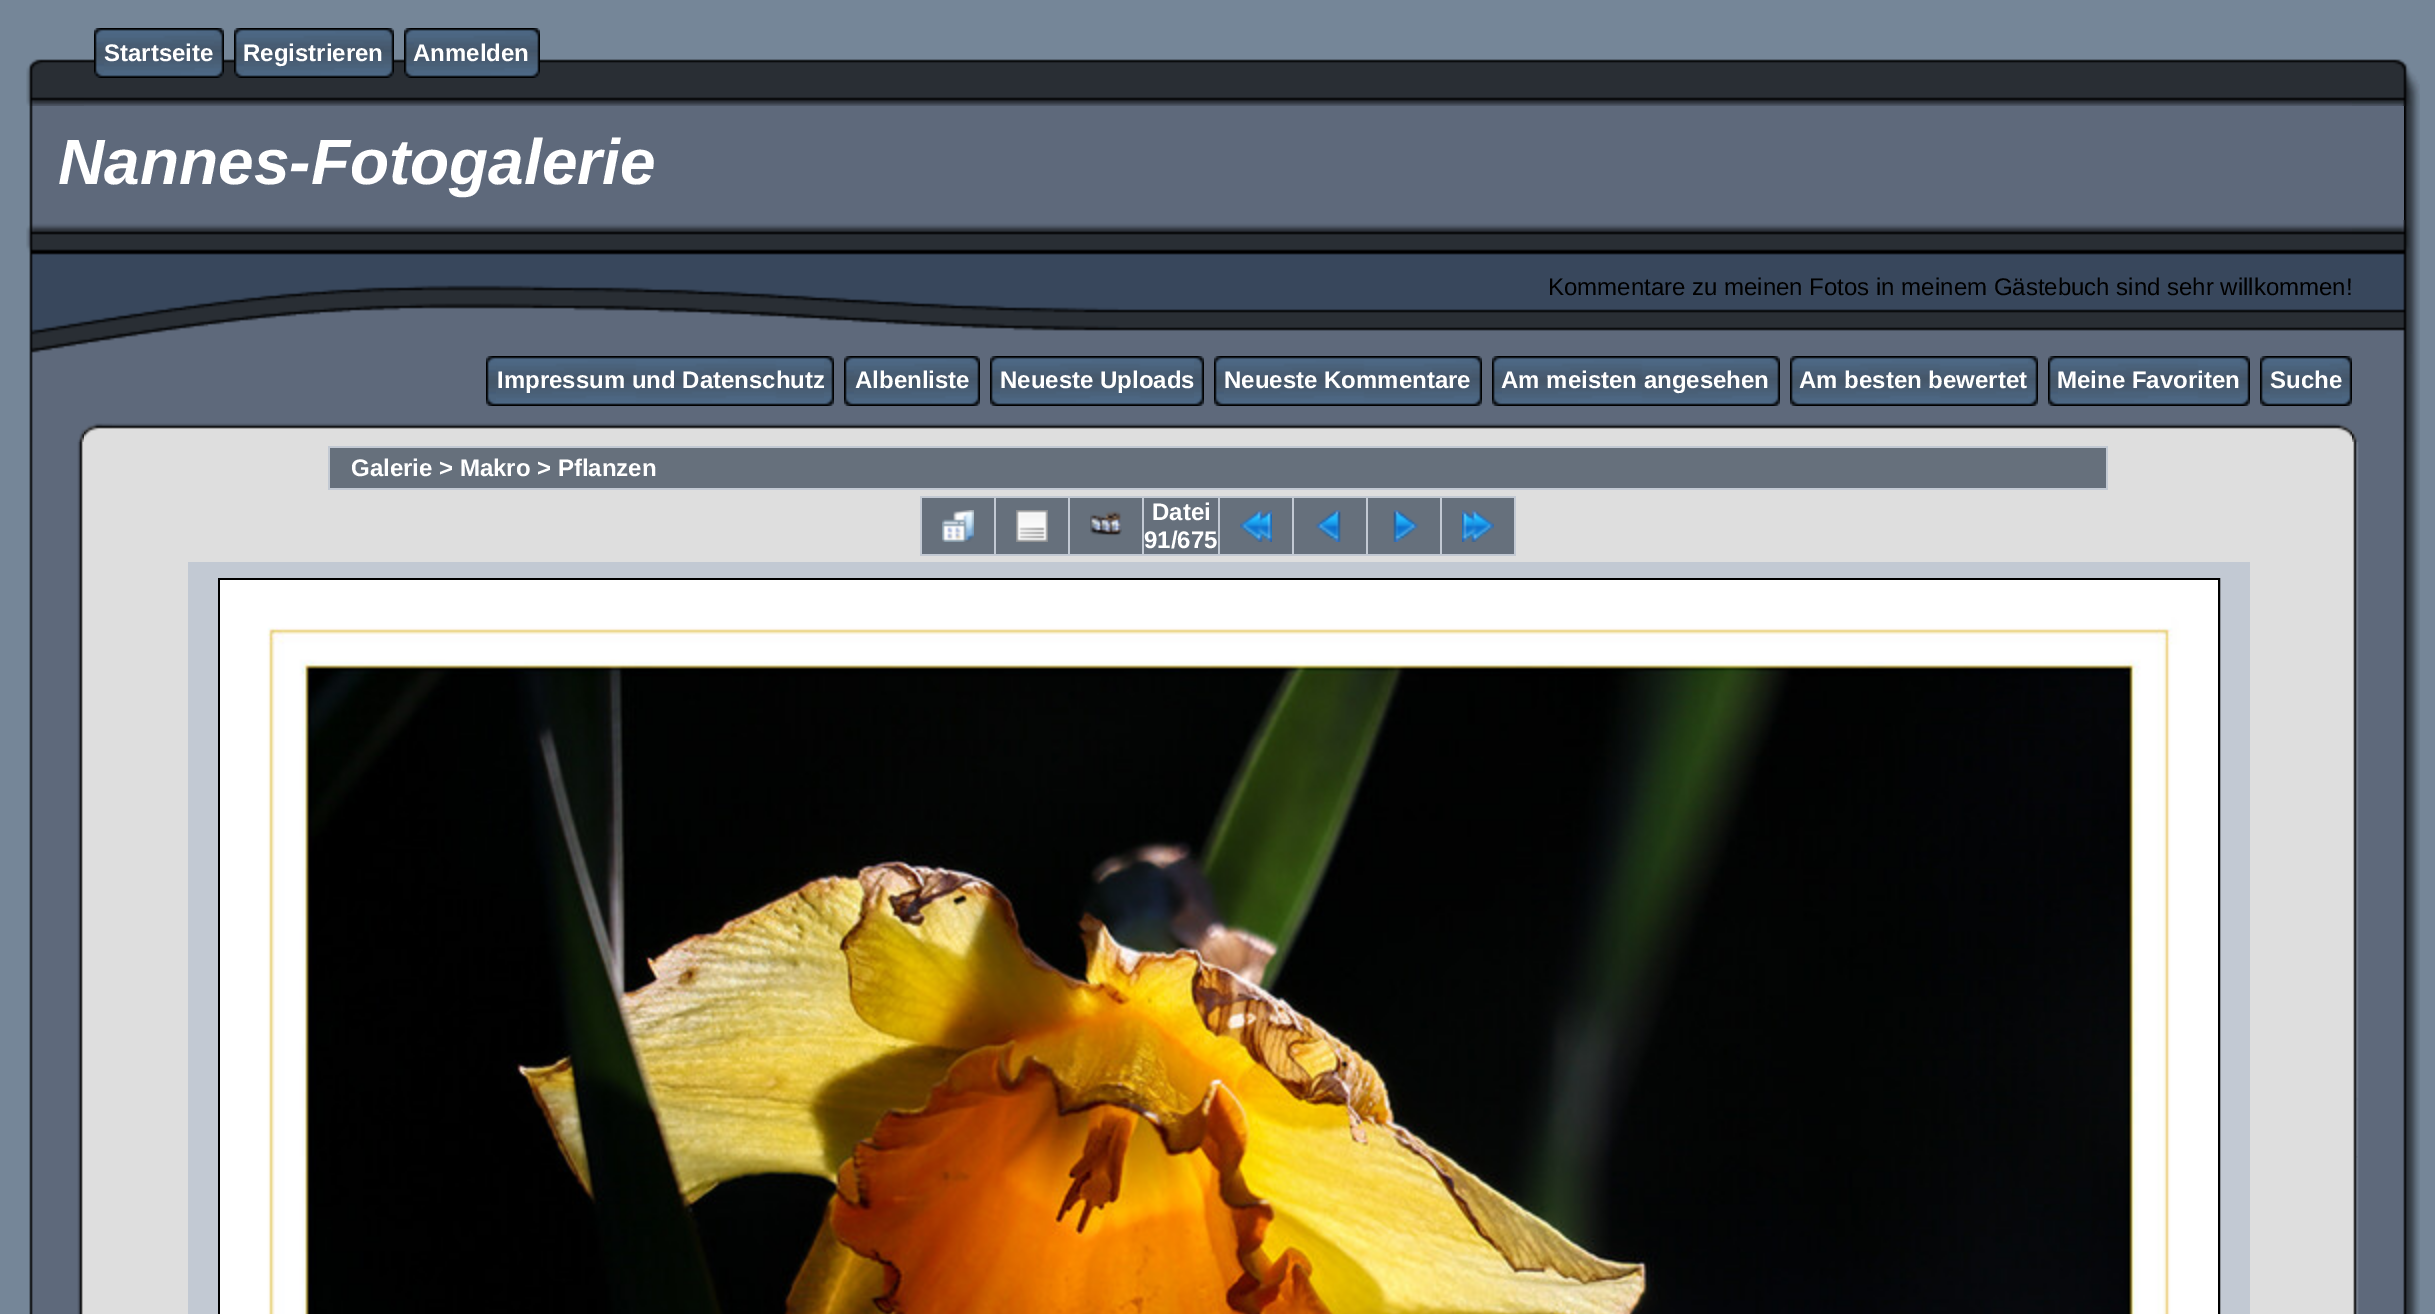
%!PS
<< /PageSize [2435 1314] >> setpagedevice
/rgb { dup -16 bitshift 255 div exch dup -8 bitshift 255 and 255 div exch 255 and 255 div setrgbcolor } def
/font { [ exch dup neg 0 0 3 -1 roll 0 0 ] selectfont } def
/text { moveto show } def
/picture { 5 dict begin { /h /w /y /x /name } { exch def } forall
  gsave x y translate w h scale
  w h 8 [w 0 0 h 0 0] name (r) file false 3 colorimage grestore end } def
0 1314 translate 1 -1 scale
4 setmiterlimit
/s1 { /LiberationSans-Bold 24 font 16#FFFFFF rgb } def
/s2 { /LiberationSans-BoldItalic 64 font 16#FFFFFF rgb } def
/s3 { /LiberationSans-Regular 24 font 16#000000 rgb } def
16#758698 rgb
0 0 2435 1314 rectfill
(pic1.raw) 84 59 2268 47 picture
(pic2.raw) 94 28 10 50 picture
(pic3.raw) 104 28 110 50 picture
s1
(Startseite) 104 61 text
(pic4.raw) 214 28 10 50 picture
(pic2.raw) 234 28 10 50 picture
(pic5.raw) 244 28 140 50 picture
(Registrieren) 243 61 text
(pic4.raw) 384 28 10 50 picture
(pic2.raw) 404 28 10 50 picture
(pic6.raw) 414 28 116 50 picture
(Anmelden) 413 61 text
(pic4.raw) 530 28 10 50 picture
(pic7.raw) 26 59 58 47 picture
(pic8.raw) 2352 59 68 47 picture
(pic9.raw) 29 106 7 114 picture
16#5E697B rgb
36 106 2368 114 rectfill
s2
(Nannes-Fotogalerie) 58 184 text
(pic10.raw) 2404 106 16 114 picture
(pic11.raw) 26 220 1094 134 picture
(pic12.raw) 1120 220 1232 134 picture
s3
(Kommentare zu meinen Fotos in meinem Gästebuch sind sehr willkommen!) 1548 295 text
(pic13.raw) 2352 220 68 134 picture
(pic14.raw) 29 354 55 52 picture
16#5E697B rgb
84 354 2268 52 rectfill
(pic15.raw) 486 356 10 50 picture
(pic16.raw) 496 356 328 50 picture
s1
(Impressum und Datenschutz) 497 388 text
(pic17.raw) 824 356 10 50 picture
(pic15.raw) 844 356 10 50 picture
(pic18.raw) 854 356 116 50 picture
(Albenliste) 855 388 text
(pic17.raw) 970 356 10 50 picture
(pic15.raw) 990 356 10 50 picture
(pic19.raw) 1000 356 194 50 picture
(Neueste Uploads) 1000 388 text
(pic17.raw) 1194 356 10 50 picture
(pic15.raw) 1214 356 10 50 picture
(pic20.raw) 1224 356 248 50 picture
(Neueste Kommentare) 1224 388 text
(pic17.raw) 1472 356 10 50 picture
(pic15.raw) 1492 356 10 50 picture
(pic21.raw) 1502 356 268 50 picture
(Am meisten angesehen) 1501 388 text
(pic17.raw) 1770 356 10 50 picture
(pic15.raw) 1790 356 10 50 picture
(pic22.raw) 1800 356 228 50 picture
(Am besten bewertet) 1799 388 text
(pic17.raw) 2028 356 10 50 picture
(pic15.raw) 2048 356 10 50 picture
(pic23.raw) 2058 356 182 50 picture
(Meine Favoriten) 2057 388 text
(pic17.raw) 2240 356 10 50 picture
(pic15.raw) 2260 356 10 50 picture
(pic24.raw) 2270 356 72 50 picture
(Suche) 2270 388 text
(pic17.raw) 2342 356 10 50 picture
(pic25.raw) 2352 354 68 52 picture
(pic26.raw) 29 406 55 36 picture
(pic27.raw) 84 406 28 36 picture
(pic28.raw) 112 406 2212 36 picture
(pic29.raw) 2324 406 28 36 picture
(pic30.raw) 2352 406 68 36 picture
(pic31.raw) 29 442 55 872 picture
16#DEDEDE rgb
84 442 2268 872 rectfill
16#C2C9D3 rgb
328 446 1780 44 rectfill
16#66707C rgb
330 448 1776 40 rectfill
s1
(Galerie > Makro > Pflanzen) 351 476 text
16#C2C9D3 rgb
920 496 596 60 rectfill
16#66707C rgb
922 498 72 56 rectfill
(pic32.raw) 942 510 32 32 picture
996 498 72 56 rectfill
(pic33.raw) 1016 510 32 32 picture
1070 498 72 56 rectfill
(pic34.raw) 1090 511 32 25 picture
1144 498 74 56 rectfill
s1
(Datei) 1152 520 text
(91/675) 1144 548 text
16#66707C rgb
1220 498 72 56 rectfill
(pic35.raw) 1240 510 32 32 picture
1294 498 72 56 rectfill
(pic36.raw) 1315 510 26 32 picture
1368 498 72 56 rectfill
(pic37.raw) 1393 510 26 32 picture
1442 498 72 56 rectfill
(pic38.raw) 1462 510 32 32 picture
16#C2C9D3 rgb
188 562 2062 752 rectfill
16#000000 rgb
2 setlinewidth
219 579 2000 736 rectstroke
(pic39.raw) 220 580 1998 734 picture
(pic40.raw) 2352 442 68 872 picture
(pic41.raw) 2356 1156 2 2 picture
showpage
